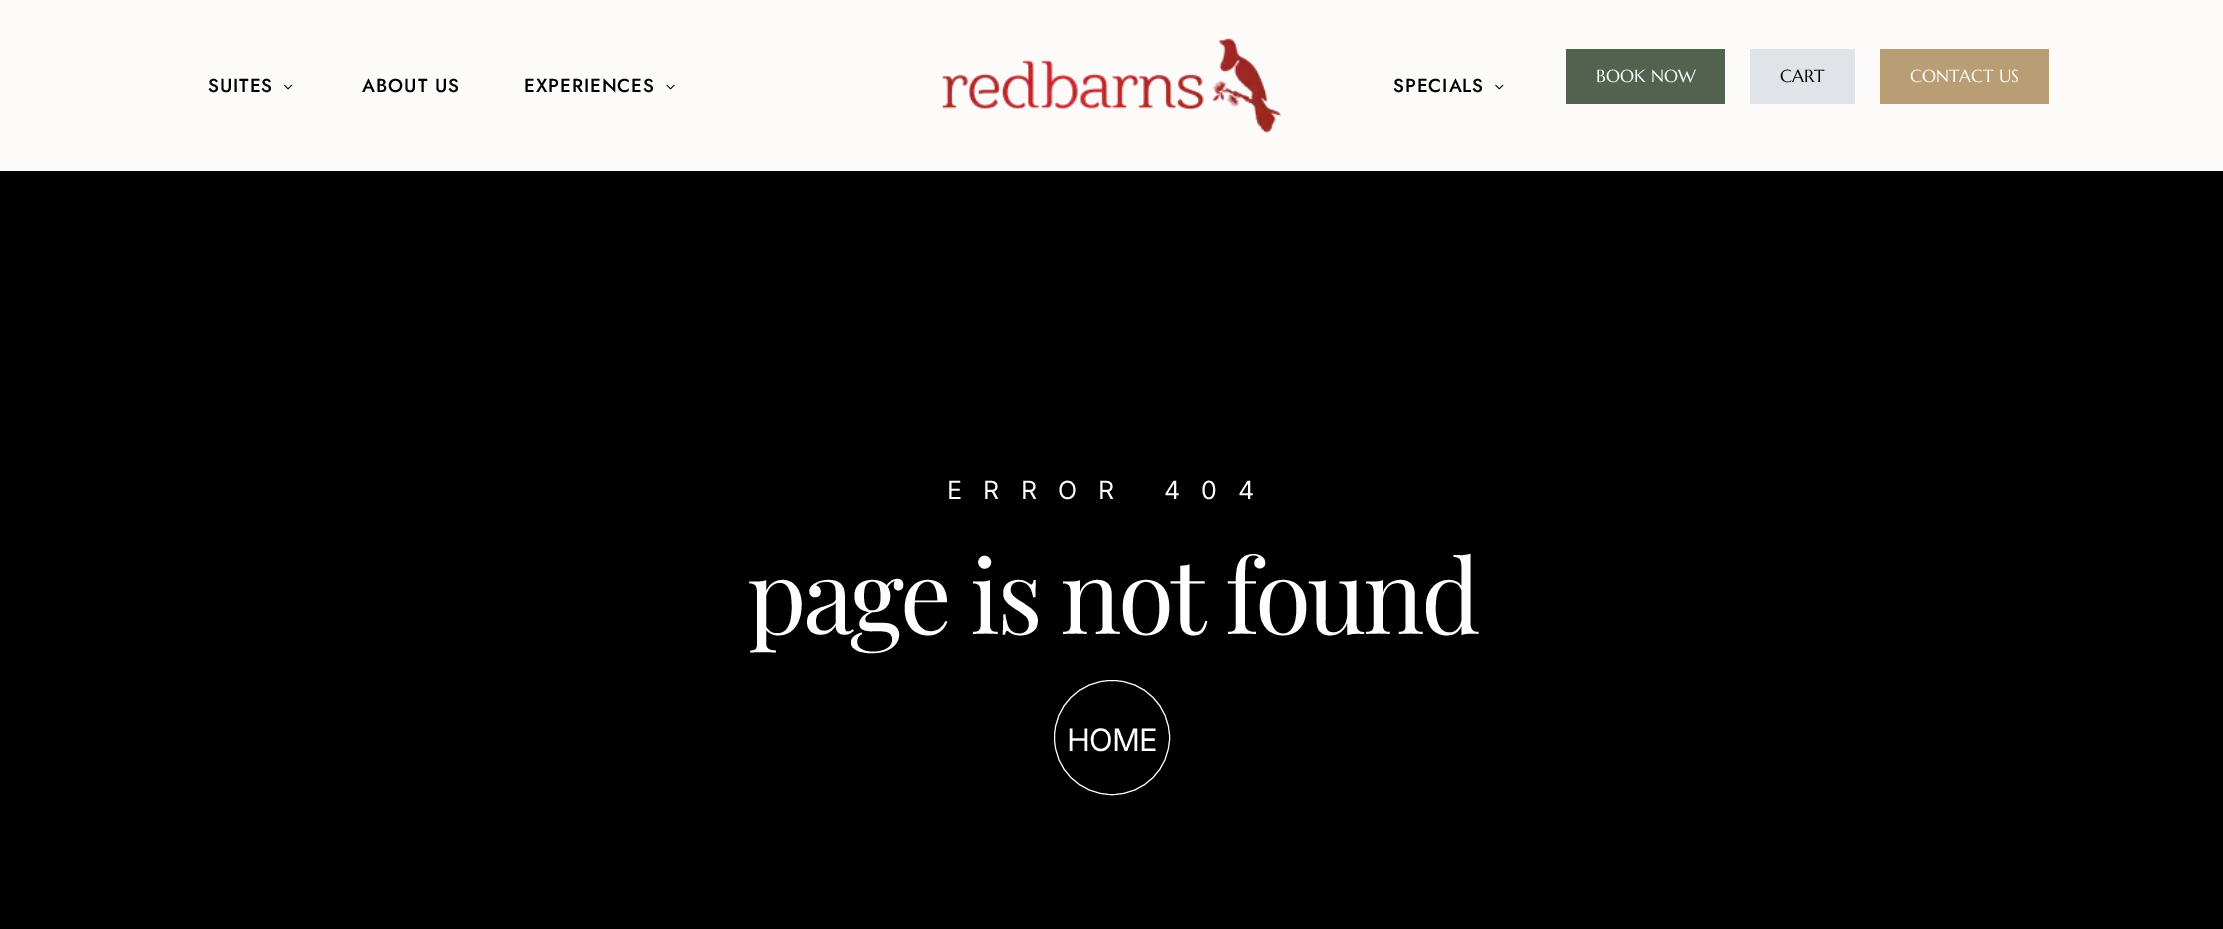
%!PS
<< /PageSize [2223 929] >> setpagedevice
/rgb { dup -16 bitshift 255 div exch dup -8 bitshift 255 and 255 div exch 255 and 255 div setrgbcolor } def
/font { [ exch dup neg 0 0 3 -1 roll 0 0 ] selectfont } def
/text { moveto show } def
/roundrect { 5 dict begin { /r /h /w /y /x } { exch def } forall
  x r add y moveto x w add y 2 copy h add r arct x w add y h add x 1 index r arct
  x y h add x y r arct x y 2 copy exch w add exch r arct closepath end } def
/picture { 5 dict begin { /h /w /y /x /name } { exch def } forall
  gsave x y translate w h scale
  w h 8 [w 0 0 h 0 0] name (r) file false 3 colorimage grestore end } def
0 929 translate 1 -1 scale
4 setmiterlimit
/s1 { /Marcellus-Regular 17.5 font 16#FFFFFF rgb } def
/s2 { /Marcellus-Regular 17.5 font 16#000000 rgb } def
16#000000 rgb
0 0 2223 929 rectfill
16#FDFBFA rgb
0 0 2223 171 rectfill
/Jost-Medium 18.75 font
16#000000 rgb
208 92 moveto 1 0 (SUITES) ashow
(pic1.raw) 284 84 9 6 picture
362 92 moveto 1 0 (ABOUT US) ashow
524 92 moveto 1 0 (EXPERIENCES) ashow
(pic2.raw) 666 84 9 6 picture
(pic3.raw) 942 38 340 95 picture
16#53624E rgb
1566 49 159 55 rectfill
s1
(BOOK NOW) 1596 82 text
16#E0E4E9 rgb
1750 49 105 55 rectfill
s2
(CART) 1780 82 text
16#B99D75 rgb
1880 49 169 55 rectfill
s1
(CONTACT US) 1910 82 text
/Jost-Medium 18.75 font
16#000000 rgb
1393 92 moveto 1 0 (SPECIALS) ashow
(pic4.raw) 1495 84 9 6 picture
/Inter-Regular 25 font
16#FFFFFF rgb
947 499 moveto 21.25 0 (ERROR 404) ashow
/PlayfairDisplay-Regular 102.5 font
747 634 moveto -3.75 0 (page is not found) ashow
1054.5 680.5 115 114 57 roundrect stroke
/Inter-Regular 31 font
1067 751 moveto -1 0 (HOME) ashow
showpage
